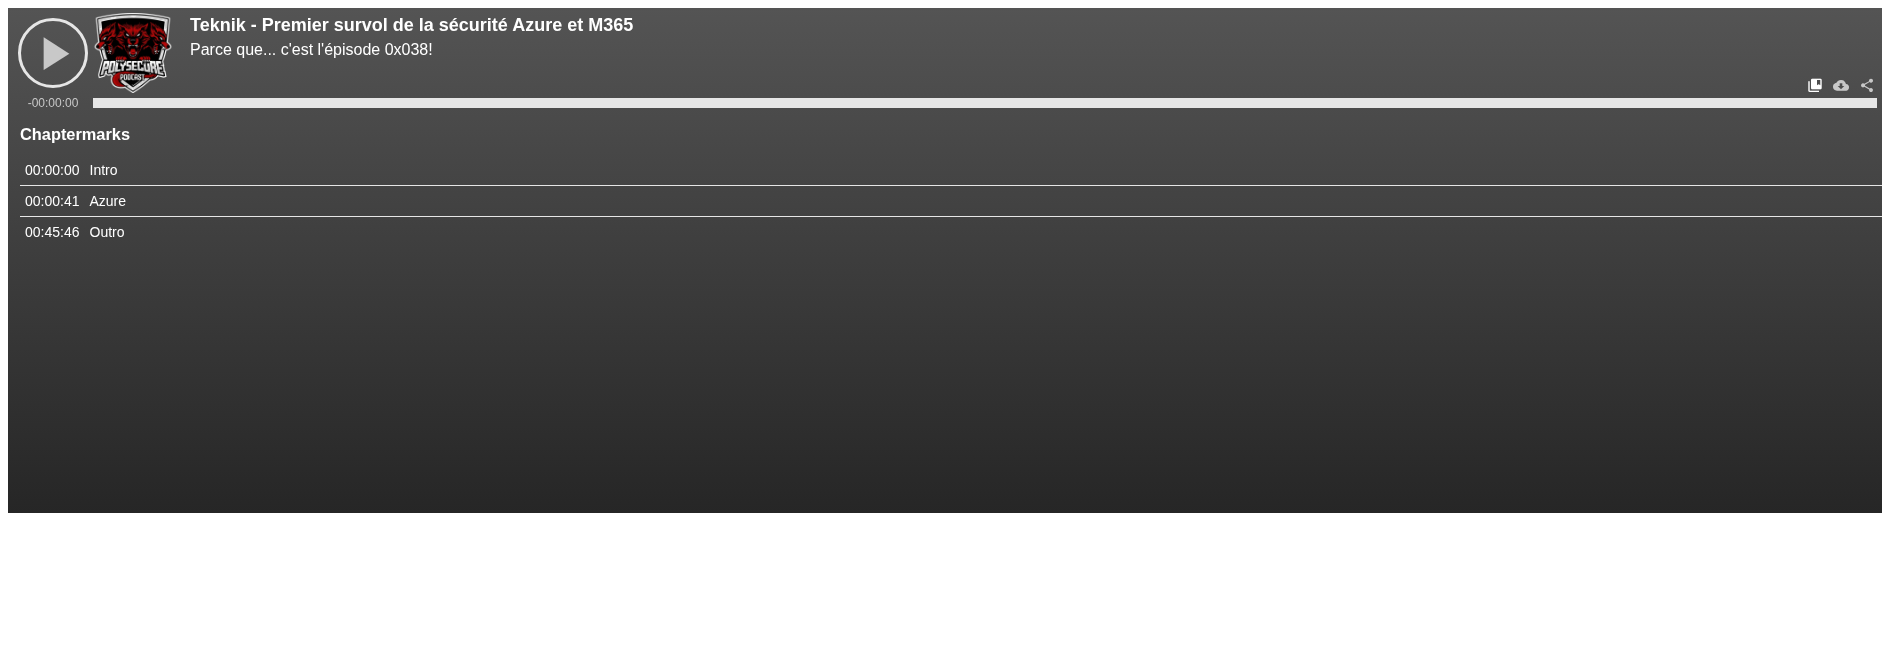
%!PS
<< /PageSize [1890 652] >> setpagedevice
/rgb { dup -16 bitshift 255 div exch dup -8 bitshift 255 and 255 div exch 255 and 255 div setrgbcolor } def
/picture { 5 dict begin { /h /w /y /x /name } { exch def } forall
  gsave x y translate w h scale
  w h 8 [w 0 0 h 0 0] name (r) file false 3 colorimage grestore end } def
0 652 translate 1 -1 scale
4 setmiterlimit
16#FFFFFF rgb
0 0 1890 652 rectfill
(pic1.raw) 8 8 1874 505 picture
showpage
